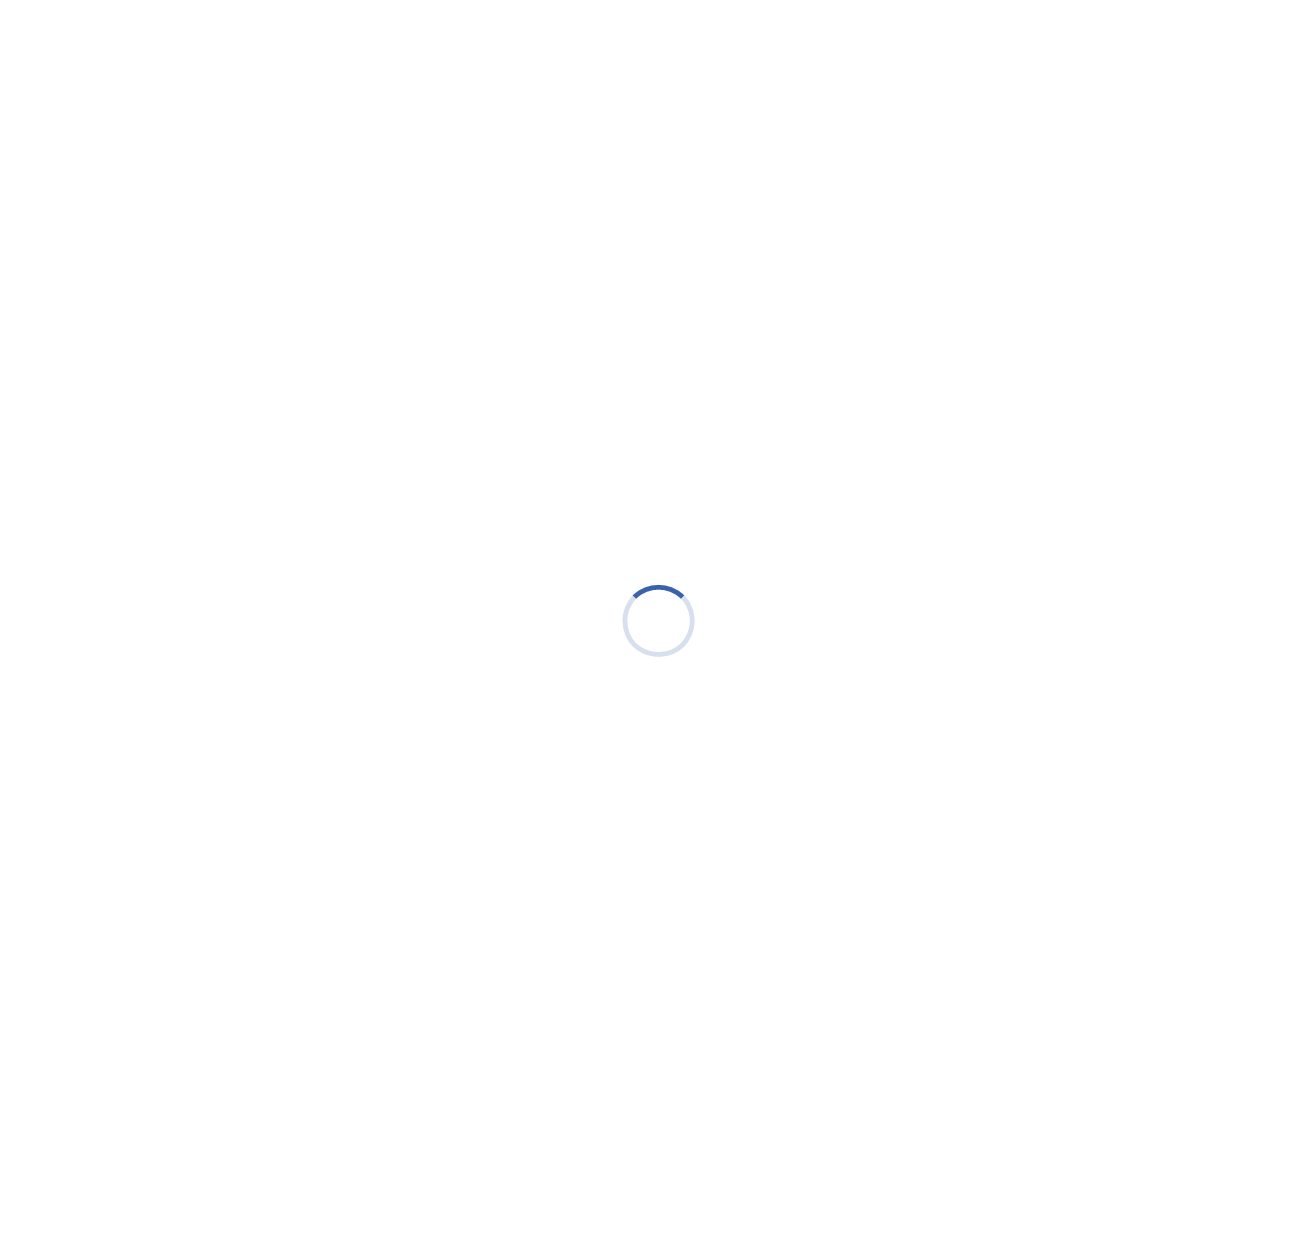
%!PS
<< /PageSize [1315 1242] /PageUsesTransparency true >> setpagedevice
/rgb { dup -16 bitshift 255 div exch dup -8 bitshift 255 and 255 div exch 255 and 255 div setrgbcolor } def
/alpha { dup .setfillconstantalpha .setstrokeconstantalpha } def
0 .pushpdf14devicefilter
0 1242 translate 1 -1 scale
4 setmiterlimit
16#FFFFFF rgb
0 0 1315 1242 rectfill
16#3962AD rgb
4.5 setlinewidth
634.5 597 moveto 647.5 584 669.5 584 682.5 597 curveto stroke
0.2 alpha
682.5 597 moveto 690.5 605 694 616.5 691.5 627.5 curveto 683.5 667 625 661.5 625 621 curveto 624.5 612 628.5 603.5 634.5 597 curveto stroke
.poppdf14devicefilter showpage
